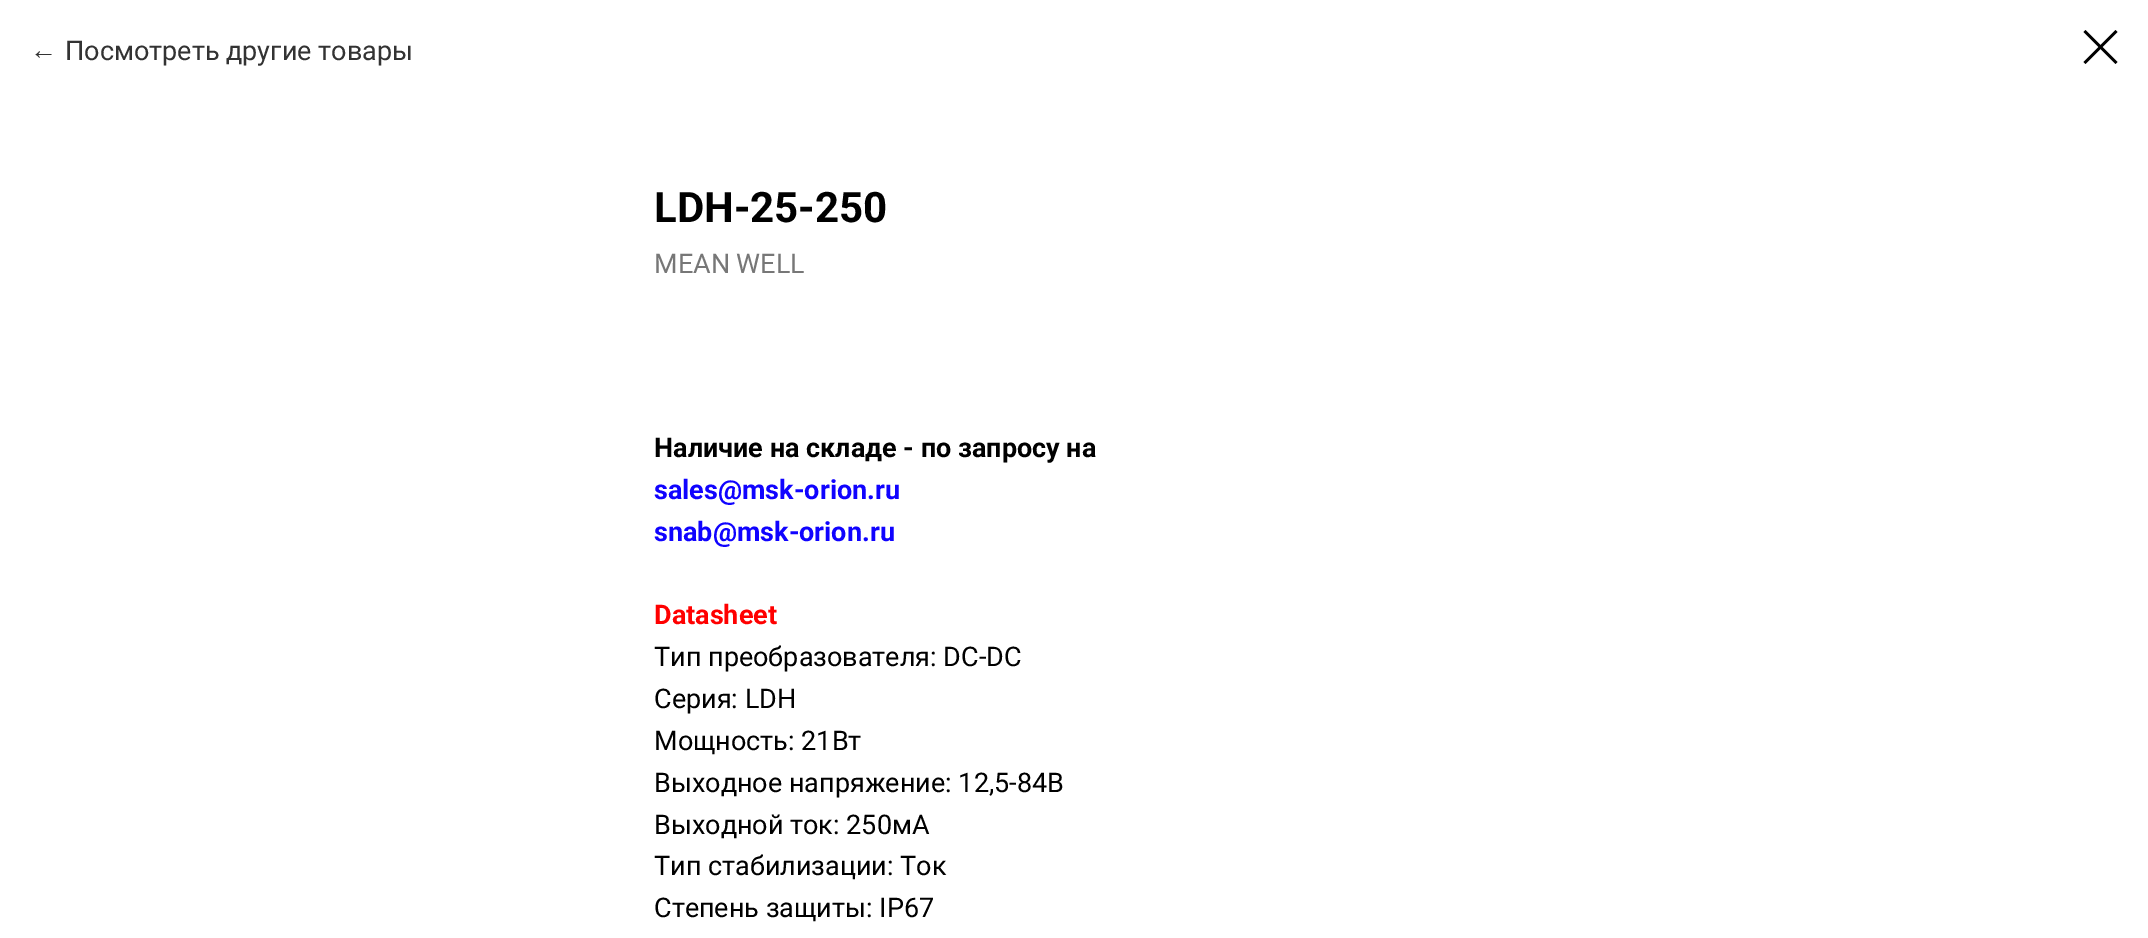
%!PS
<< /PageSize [2148 938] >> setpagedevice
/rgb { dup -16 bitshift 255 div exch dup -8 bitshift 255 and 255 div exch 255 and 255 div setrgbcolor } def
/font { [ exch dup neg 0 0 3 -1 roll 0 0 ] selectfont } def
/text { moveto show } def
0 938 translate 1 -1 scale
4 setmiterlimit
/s1 { /LiberationSans-Regular 27 font 16#333333 rgb } def
/s2 { /Roboto-Regular 27 font 16#333333 rgb } def
/s3 { /Roboto-Bold 42 font 16#000000 rgb } def
/s4 { /Roboto-Regular 27 font 16#777777 rgb } def
/s5 { /Roboto-Bold 27 font 16#000000 rgb } def
/s6 { /Roboto-Bold 27 font 16#1003FF rgb } def
/s7 { /Roboto-Bold 27 font 16#FF0000 rgb } def
/s8 { /Roboto-Regular 27 font 16#000000 rgb } def
16#FFFFFF rgb
0 0 2148 938 rectfill
s1
(←) 30 59 text
s2
(Посмотреть другие товары) 65 60 text
16#000000 rgb
2083.5 32 moveto 2085.5 30 lineto 2117.5 62 lineto 2115.5 64 lineto closepath eofill
2115.5 30 moveto 2117.5 32 lineto 2085.5 64 lineto 2083.5 62 lineto closepath eofill
s3
(LDH-25-250) 654 222 text
s4
(MEAN WELL) 654 273 text
s5
(Наличие на складе - по запросу на) 654 457 text
s6
(sales@msk-orion.ru) 654 499 text
(snab@msk-orion.ru) 654 541 text
s7
(Datasheet) 654 624 text
s8
(Тип преобразователя: DC-DC) 654 666 text
(Серия: LDH) 654 708 text
(Мощность: 21Вт) 654 750 text
(Выходное напряжение: 12,5-84В) 654 792 text
(Выходной ток: 250мА) 654 834 text
(Тип стабилизации: Ток) 654 875 text
(Степень защиты: IP67) 654 917 text
showpage
